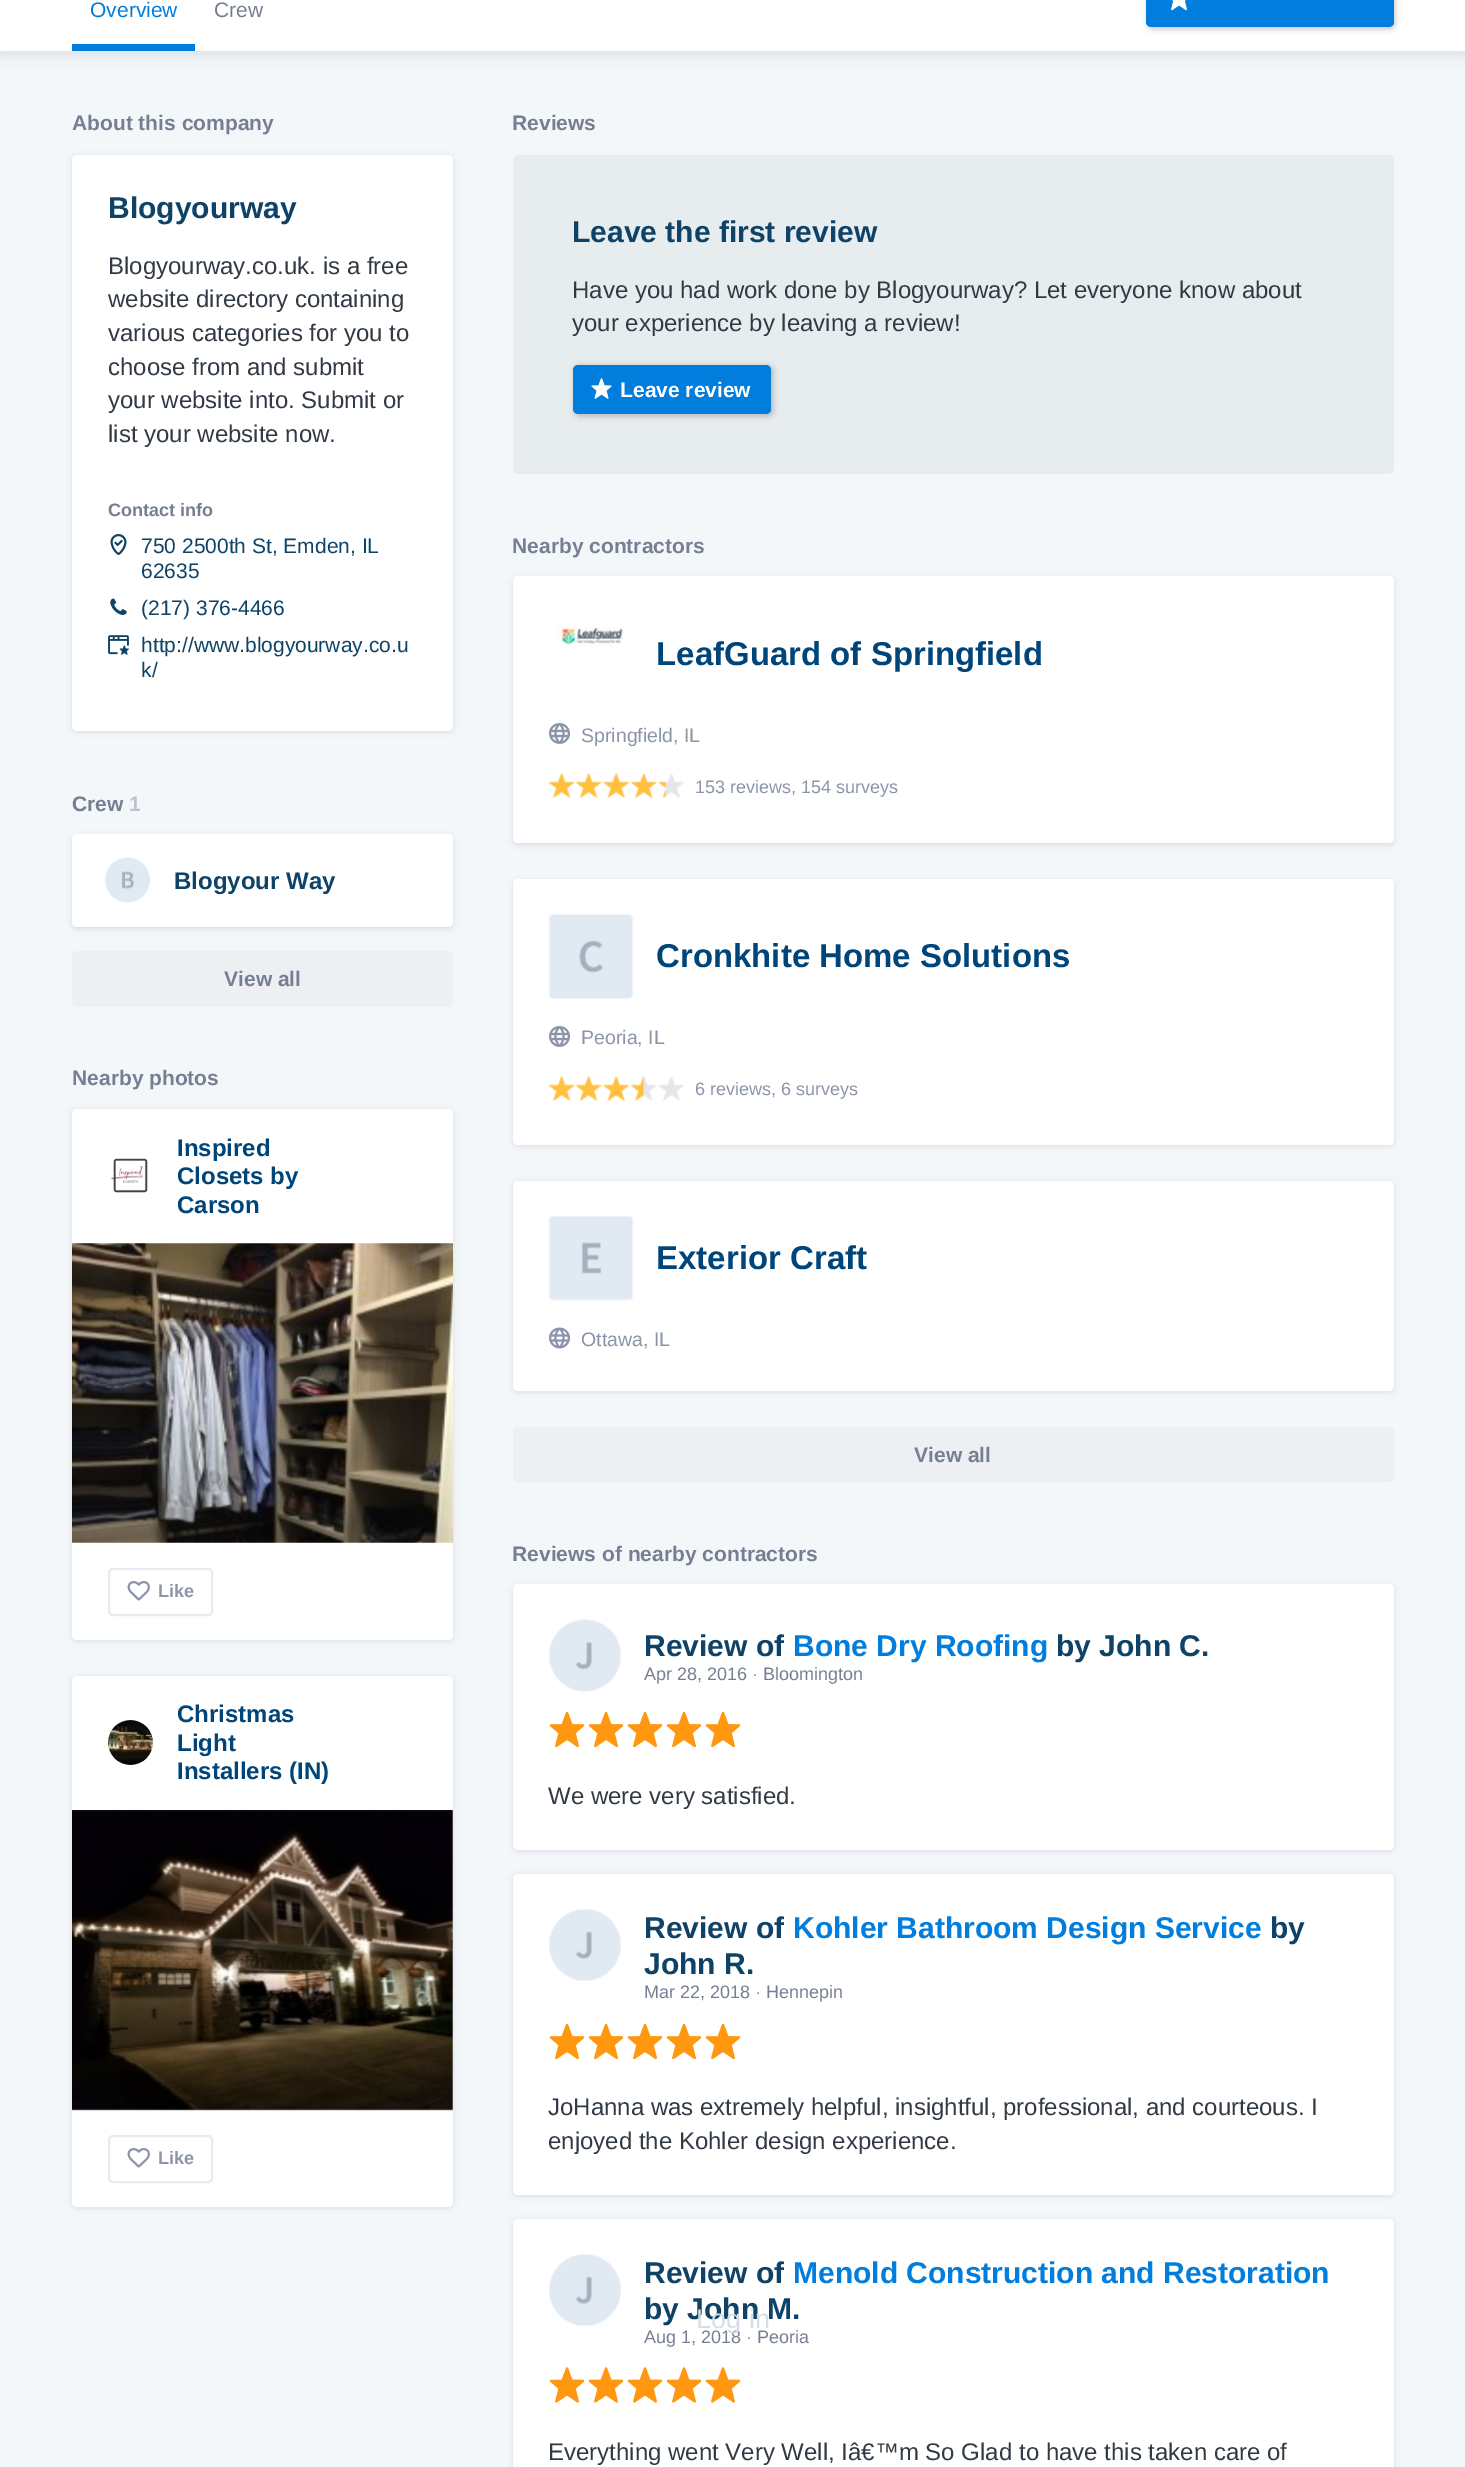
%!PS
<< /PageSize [1465 2467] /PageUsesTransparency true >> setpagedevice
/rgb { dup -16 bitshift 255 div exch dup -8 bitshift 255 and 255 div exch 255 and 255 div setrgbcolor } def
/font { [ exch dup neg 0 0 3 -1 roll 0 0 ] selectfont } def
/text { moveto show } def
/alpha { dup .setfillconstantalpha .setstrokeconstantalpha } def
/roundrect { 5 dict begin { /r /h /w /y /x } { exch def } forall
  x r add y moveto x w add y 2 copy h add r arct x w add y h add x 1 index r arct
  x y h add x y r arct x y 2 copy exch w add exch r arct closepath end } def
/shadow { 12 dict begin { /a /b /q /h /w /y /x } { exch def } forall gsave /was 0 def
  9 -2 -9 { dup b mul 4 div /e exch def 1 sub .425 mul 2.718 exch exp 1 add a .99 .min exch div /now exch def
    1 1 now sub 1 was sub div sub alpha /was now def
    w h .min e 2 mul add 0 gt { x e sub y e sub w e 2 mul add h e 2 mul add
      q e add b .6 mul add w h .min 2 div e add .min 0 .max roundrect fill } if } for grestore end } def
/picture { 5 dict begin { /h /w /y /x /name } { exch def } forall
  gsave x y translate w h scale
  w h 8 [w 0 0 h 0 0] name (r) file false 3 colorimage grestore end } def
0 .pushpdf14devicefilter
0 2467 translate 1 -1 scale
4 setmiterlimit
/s1 { /LiberationSans-Regular 21 font 16#007DDD rgb } def
/s2 { /LiberationSans-Regular 21 font 16#767E92 rgb } def
/s3 { /LiberationSans-Bold 21 font 16#767E92 rgb } def
/s4 { /LiberationSans-Bold 30 font 16#0E4266 rgb } def
/s5 { /LiberationSans-Regular 24 font 16#313A44 rgb } def
/s6 { /LiberationSans-Bold 18 font 16#767E92 rgb } def
/s7 { /LiberationSans-Regular 21 font 16#0E4266 rgb } def
/s8 { /LiberationSans-Bold 21 font 16#BCC1CD rgb } def
/s9 { /LiberationSans-Bold 24 font 16#0E4266 rgb } def
/s10 { /LiberationSans-Bold 24 font 16#004579 rgb } def
/s11 { /LiberationSans-Bold 18 font 16#8B94A9 rgb } def
/s12 { /LiberationSans-Bold 21 font 16#FFFFFF rgb } def
/s13 { /LiberationSans-Bold 33 font 16#004579 rgb } def
/s14 { /LiberationSans-Regular 19.5 font 16#8B94A9 rgb } def
/s15 { /LiberationSans-Regular 18 font 16#8B94A9 rgb } def
/s16 { /LiberationSans-Bold 30 font 16#007DDD rgb } def
/s17 { /LiberationSans-Regular 18 font 16#767E92 rgb } def
/s18 { /LiberationSans-Regular 27 font 16#D5DEE4 rgb } def
16#F4F7FA rgb
0 0 1465 2467 rectfill
16#334A6D rgb
0 -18 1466 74 0 6 0.12 shadow
16#FFFFFF rgb
0 0 1465 51 rectfill
s1
(Overview) 90 17 text
72 44 123 7 rectfill
s2
(Crew) 214 17 text
16#000000 rgb
1148 -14 247 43 5 3 0.24 shadow
16#007DDD rgb
1146 -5 248 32 5 roundrect fill
(pic1.raw) 1171 0 16 11 picture
s3
(About this company) 72 130 text
16#334A6D rgb
72 156 381 576 5 3 0.16 shadow
16#FFFFFF rgb
72 155 381 576 5 roundrect fill
s4
(Blogyourway) 108 218 text
s5
(Blogyourway.co.uk. is a free) 108 274 text
(website directory containing) 108 307 text
(various categories for you to) 108 341 text
(choose from and submit) 108 375 text
(your website into. Submit or) 108 408 text
(list your website now.) 108 442 text
s6
(Contact info) 108 516 text
(pic2.raw) 110 534 17 21 picture
s7
(750 2500th St, Emden, IL) 141 553 text
(62635) 141 578 text
(pic3.raw) 110 598 17 17 picture
(\(217\) 376-4466) 141 615 text
(pic4.raw) 108 635 21 20 picture
(http://www.blogyourway.co.u) 141 652 text
(k/) 141 677 text
s3
(Crew) 72 811 text
s8
(1) 129 811 text
16#334A6D rgb
72 836 381 93 5 3 0.16 shadow
16#FFFFFF rgb
72 834 381 93 5 roundrect fill
(pic5.raw) 105 857 45 46 picture
s9
(Blogyour Way) 174 889 text
16#EDEFF3 rgb
72 951 381 56 5 roundrect fill
s3
(View all) 224 986 text
(Nearby photos) 72 1085 text
16#334A6D rgb
72 1110 381 531 5 3 0.15 shadow
16#FFFFFF rgb
72 1109 381 531 5 roundrect fill
(pic6.raw) 110 1158 38 35 picture
s10
(Inspired) 177 1156 text
(Closets by) 177 1184 text
(Carson) 177 1213 text
(pic7.raw) 72 1243 381 300 picture
16#E7EBEF rgb
2 setlinewidth
109 1569 103 46 4 roundrect stroke
(pic8.raw) 127 1581 23 20 picture
s11
(Like) 158 1597 text
16#334A6D rgb
72 1677 381 531 5 3 0.15 shadow
16#FFFFFF rgb
72 1676 381 531 5 roundrect fill
(pic9.raw) 108 1720 45 45 picture
s10
(Christmas) 177 1722 text
(Light) 177 1751 text
(Installers \(IN\)) 177 1779 text
(pic10.raw) 72 1810 381 301 picture
16#E7EBEF rgb
109 2136 103 46 4 roundrect stroke
(pic8.raw) 127 2148 23 20 picture
s11
(Like) 158 2164 text
s3
(Reviews) 512 130 text
16#E7ECEF rgb
513 155 881 319 5 roundrect fill
s4
(Leave the first review) 572 242 text
s5
(Have you had work done by Blogyourway? Let everyone know about) 572 298 text
(your experience by leaving a review!) 572 331 text
16#000000 rgb
575 366 198 50 5 3 0.24 shadow
16#007DDD rgb
573 365 198 49 5 roundrect fill
(pic11.raw) 591 378 21 21 picture
s12
(Leave review) 620 397 text
s3
(Nearby contractors) 512 553 text
16#334A6D rgb
513 578 881 267 5 3 0.15 shadow
16#FFFFFF rgb
513 576 881 267 5 roundrect fill
(pic12.raw) 557 627 66 20 picture
s13
(LeafGuard of Springfield) 656 665 text
(pic13.raw) 549 723 22 21 picture
s14
(Springfield, IL) 581 742 text
(pic14.raw) 548 773 136 25 picture
s15
(153 reviews, 154 surveys) 695 793 text
16#334A6D rgb
513 881 881 265 5 3 0.15 shadow
16#FFFFFF rgb
513 879 881 266 5 roundrect fill
(pic15.raw) 548 914 86 85 picture
s13
(Cronkhite Home Solutions) 656 967 text
(pic13.raw) 549 1026 22 21 picture
s14
(Peoria, IL) 581 1044 text
(pic16.raw) 548 1076 136 25 picture
s15
(6 reviews, 6 surveys) 695 1095 text
16#334A6D rgb
513 1182 881 210 5 3 0.15 shadow
16#FFFFFF rgb
513 1181 881 210 5 roundrect fill
(pic17.raw) 548 1215 86 86 picture
s13
(Exterior Craft) 656 1269 text
(pic18.raw) 549 1327 22 22 picture
s14
(Ottawa, IL) 581 1346 text
16#EDEFF3 rgb
513 1427 881 55 5 roundrect fill
s3
(View all) 914 1462 text
(Reviews of nearby contractors) 512 1561 text
16#334A6D rgb
513 1586 881 265 5 3 0.16 shadow
16#FFFFFF rgb
513 1584 881 266 5 roundrect fill
(pic19.raw) 549 1619 72 73 picture
s4
(Review of) 644 1656 text
s16
(Bone Dry Roofing) 793 1656 text
s4
(by John C.) 1056 1656 text
s17
(Apr 28, 2016 · Bloomington) 644 1680 text
(pic20.raw) 549 1711 36 37 picture
(pic20.raw) 588 1711 36 37 picture
(pic20.raw) 627 1711 36 37 picture
(pic20.raw) 666 1711 36 37 picture
(pic20.raw) 705 1711 36 37 picture
s5
(We were very satisfied.) 548 1804 text
16#334A6D rgb
513 1875 881 321 5 3 0.16 shadow
16#FFFFFF rgb
513 1874 881 321 5 roundrect fill
(pic21.raw) 549 1909 72 72 picture
s4
(Review of) 644 1938 text
s16
(Kohler Bathroom Design Service) 793 1938 text
s4
(by) 1270 1938 text
(John R.) 644 1974 text
s17
(Mar 22, 2018 · Hennepin) 644 1998 text
(pic20.raw) 549 2023 36 37 picture
(pic20.raw) 588 2023 36 37 picture
(pic20.raw) 627 2023 36 37 picture
(pic20.raw) 666 2023 36 37 picture
(pic20.raw) 705 2023 36 37 picture
s5
(JoHanna was extremely helpful, insightful, professional, and courteous. I) 548 2115 text
(enjoyed the Kohler design experience.) 548 2149 text
16#334A6D rgb
513 2220 881 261 5 3 0.16 shadow
16#FFFFFF rgb
513 2219 881 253 5 roundrect fill
(pic22.raw) 549 2254 72 72 picture
s4
(Review of) 644 2283 text
s16
(Menold Construction and Restoration) 793 2283 text
s4
(by John M.) 644 2319 text
s17
(Aug 1, 2018 · Peoria) 644 2343 text
(pic23.raw) 549 2367 36 36 picture
(pic23.raw) 588 2367 36 36 picture
(pic23.raw) 627 2367 36 36 picture
(pic23.raw) 666 2367 36 36 picture
(pic23.raw) 705 2367 36 36 picture
s5
(Everything went Very Well, Iâ€™m So Glad to have this taken care of) 548 2460 text
s18
(Log in) 696 2328 text
.poppdf14devicefilter showpage
